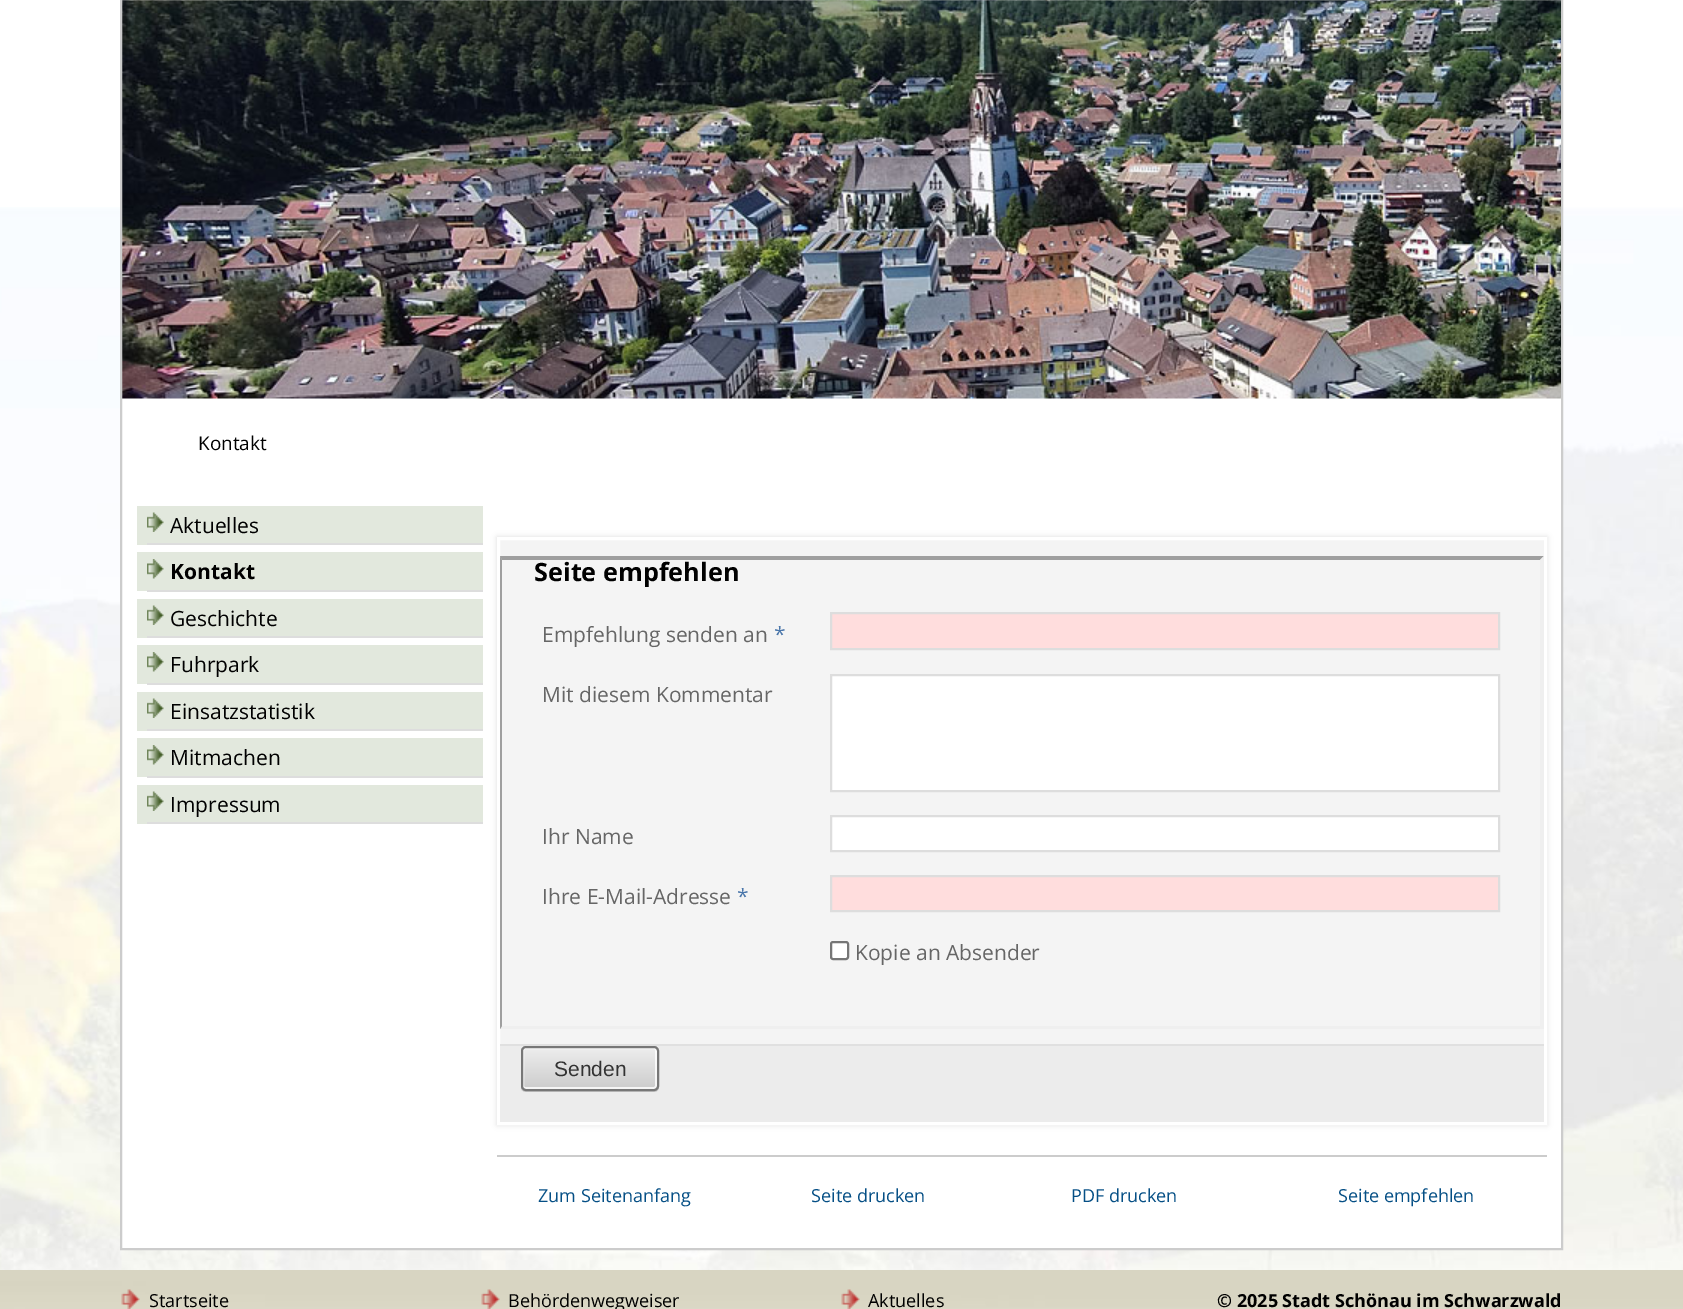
%!PS
<< /PageSize [1683 1309] /PageUsesTransparency true >> setpagedevice
/rgb { dup -16 bitshift 255 div exch dup -8 bitshift 255 and 255 div exch 255 and 255 div setrgbcolor } def
/font { [ exch dup neg 0 0 3 -1 roll 0 0 ] selectfont } def
/text { moveto show } def
/alpha { dup .setfillconstantalpha .setstrokeconstantalpha } def
/roundrect { 5 dict begin { /r /h /w /y /x } { exch def } forall
  x r add y moveto x w add y 2 copy h add r arct x w add y h add x 1 index r arct
  x y h add x y r arct x y 2 copy exch w add exch r arct closepath end } def
/shadow { 12 dict begin { /a /b /q /h /w /y /x } { exch def } forall gsave /was 0 def
  9 -2 -9 { dup b mul 4 div /e exch def 1 sub .425 mul 2.718 exch exp 1 add a .99 .min exch div /now exch def
    1 1 now sub 1 was sub div sub alpha /was now def
    w h .min e 2 mul add 0 gt { x e sub y e sub w e 2 mul add h e 2 mul add
      q e add b .6 mul add w h .min 2 div e add .min 0 .max roundrect fill } if } for grestore end } def
/picture { 5 dict begin { /h /w /y /x /name } { exch def } forall
  gsave x y translate w h scale
  w h 8 [w 0 0 h 0 0] name (r) file false 3 colorimage grestore end } def
0 .pushpdf14devicefilter
0 1309 translate 1 -1 scale
4 setmiterlimit
/s1 { /OpenSans-Regular 19 font 16#000000 rgb } def
/s2 { /OpenSans-Regular 21 font 16#000000 rgb } def
/s3 { /OpenSans-Bold 21 font 16#000000 rgb } def
/s4 { /OpenSans-Bold 25.25 font 16#000000 rgb } def
/s5 { /OpenSans-Regular 21 font 16#666666 rgb } def
/s6 { /OpenSans-Regular 21 font 16#4A76AA rgb } def
/s7 { /LiberationSans-Regular 21 font 16#333333 rgb } def
/s8 { /OpenSans-Regular 18 font 16#054F85 rgb } def
/s9 { /OpenSans-Regular 18 font 16#000000 rgb } def
/s10 { /OpenSans-Bold 18 font 16#000000 rgb } def
16#FFFFFF rgb
0 0 1683 1309 rectfill
(pic1.raw) 0 207 1683 1063 picture
(pic2.raw) 0 1270 1683 39 picture
122 398 1439 850 rectfill
(pic3.raw) 122 0 1439 399 picture
16#CCCCCC rgb
2 setlinewidth
121 -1 1441 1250 rectstroke
s1
(Kontakt) 198 450 text
16#E2E8DD rgb
137 506 10 39 rectfill
147 506 336 37 rectfill
(pic4.raw) 147 512 17 20 picture
16#DDDDDD rgb
147 543 336 2 rectfill
s2
(Aktuelles) 170 533 text
16#E2E8DD rgb
137 552 10 39 rectfill
147 552 336 38 rectfill
(pic5.raw) 147 559 17 20 picture
16#DDDDDD rgb
147 590 336 2 rectfill
s3
(Kontakt) 170 579 text
16#E2E8DD rgb
137 599 10 39 rectfill
147 599 336 37 rectfill
(pic4.raw) 147 605 17 20 picture
16#DDDDDD rgb
147 636 336 2 rectfill
s2
(Geschichte) 170 626 text
16#E2E8DD rgb
137 645 10 39 rectfill
147 645 336 38 rectfill
(pic5.raw) 147 652 17 20 picture
16#DDDDDD rgb
147 683 336 2 rectfill
s2
(Fuhrpark) 170 672 text
16#E2E8DD rgb
137 692 10 39 rectfill
147 692 336 37 rectfill
(pic4.raw) 147 698 17 20 picture
16#DDDDDD rgb
147 729 336 2 rectfill
s2
(Einsatzstatistik) 170 719 text
16#E2E8DD rgb
137 738 10 39 rectfill
147 738 336 38 rectfill
(pic5.raw) 147 745 17 20 picture
16#DDDDDD rgb
147 776 336 2 rectfill
s2
(Mitmachen) 170 765 text
16#E2E8DD rgb
137 785 10 39 rectfill
147 785 336 37 rectfill
(pic4.raw) 147 791 17 20 picture
16#DDDDDD rgb
147 822 336 2 rectfill
s2
(Impressum) 170 812 text
16#DDDDDD rgb
497 537 1050 588 0 3 1 shadow
16#F4F4F4 rgb
500 540 1044 504 rectfill
16#FFFFFF rgb
3 setlinewidth
498.5 538.5 1047 585 rectstroke
16#9F9F9F rgb
500 556 moveto 1544 556 lineto 1540 560 lineto 502 560 lineto closepath fill
16#EFEFEF rgb
1544 556 moveto 1544 1029 lineto 1540 1026 lineto 1540 560 lineto closepath fill
1544 1029 moveto 500 1029 lineto 502 1026 lineto 1540 1026 lineto closepath fill
16#9F9F9F rgb
500 1029 moveto 500 556 lineto 502 560 lineto 502 1026 lineto closepath fill
s4
(Seite empfehlen) 534 581 text
s5
(Empfehlung senden an) 542 642 text
s6
(*) 774 642 text
16#FFDDDD rgb
831 613 moveto 1499 613 lineto 1499 649 lineto 831 649 lineto closepath gsave fill grestore
16#DDDDDD rgb
2 setlinewidth
stroke
s5
(Mit diesem Kommentar) 542 702 text
16#FFFFFF rgb
831 675 moveto 1499 675 lineto 1499 791 lineto 831 791 lineto closepath gsave fill grestore
16#DDDDDD rgb
stroke
s5
(Ihr Name) 542 844 text
16#FFFFFF rgb
831 816 moveto 1499 816 lineto 1499 851 lineto 831 851 lineto closepath gsave fill grestore
16#DDDDDD rgb
stroke
s5
(Ihre E-Mail-Adresse) 542 904 text
s6
(*) 737 904 text
16#FFDDDD rgb
831 876 moveto 1499 876 lineto 1499 911 lineto 831 911 lineto closepath gsave fill grestore
16#DDDDDD rgb
stroke
16#FFFFFF rgb
831 942 17 17 2 roundrect gsave fill grestore
16#767676 rgb
stroke
s5
(Kopie an Absender) 855 960 text
16#ECECEC rgb
500 1046 1044 76 rectfill
16#E0E0E0 rgb
500 1044 1044 2 rectfill
16#C9C9C9 rgb
521 1089 moveto 522 1091 524 1092 526 1092 curveto 654 1092 lineto 657 1092 659 1090 659 1087 curveto 659 1052 lineto 658 1050 lineto 658 1086 lineto 658 1089 657 1090 654 1090 curveto 525 1090 lineto 523 1090 522 1090 521 1089 curveto closepath fill
gsave
521 1046 138 45 5 roundrect clip newpath
gsave 521 1047 moveto 659 1047 lineto 659 1089 lineto 521 1089 lineto closepath clip newpath
<< /ShadingType 2 /ColorSpace /DeviceRGB /Coords [590 1047 590 1089] /Extend [true true] /Function << /FunctionType 2 /Domain [0 1] /C0 [0.933 0.933 0.933] /C1 [0.8 0.8 0.8] /N 1 >> >> shfill grestore
grestore
0.8 alpha
16#FFFFFF rgb
523 1048 133 40 2 roundrect stroke
1 alpha
16#777777 rgb
522 1047 136 43 4 roundrect stroke
s7
(Senden) 554 1076 text
16#CCCCCC rgb
497 1155 1050 2 rectfill
s8
(Zum Seitenanfang) 538 1202 text
(Seite drucken) 811 1202 text
(PDF drucken) 1071 1202 text
(Seite empfehlen) 1338 1202 text
(pic6.raw) 121 1289 19 20 picture
s9
(Startseite) 149 1307 text
(pic7.raw) 481 1289 19 20 picture
(Behördenwegweiser) 508 1307 text
(pic8.raw) 841 1289 19 20 picture
(Aktuelles) 868 1307 text
s10
(© 2025 Stadt Schönau im Schwarzwald) 1217 1307 text
.poppdf14devicefilter showpage
